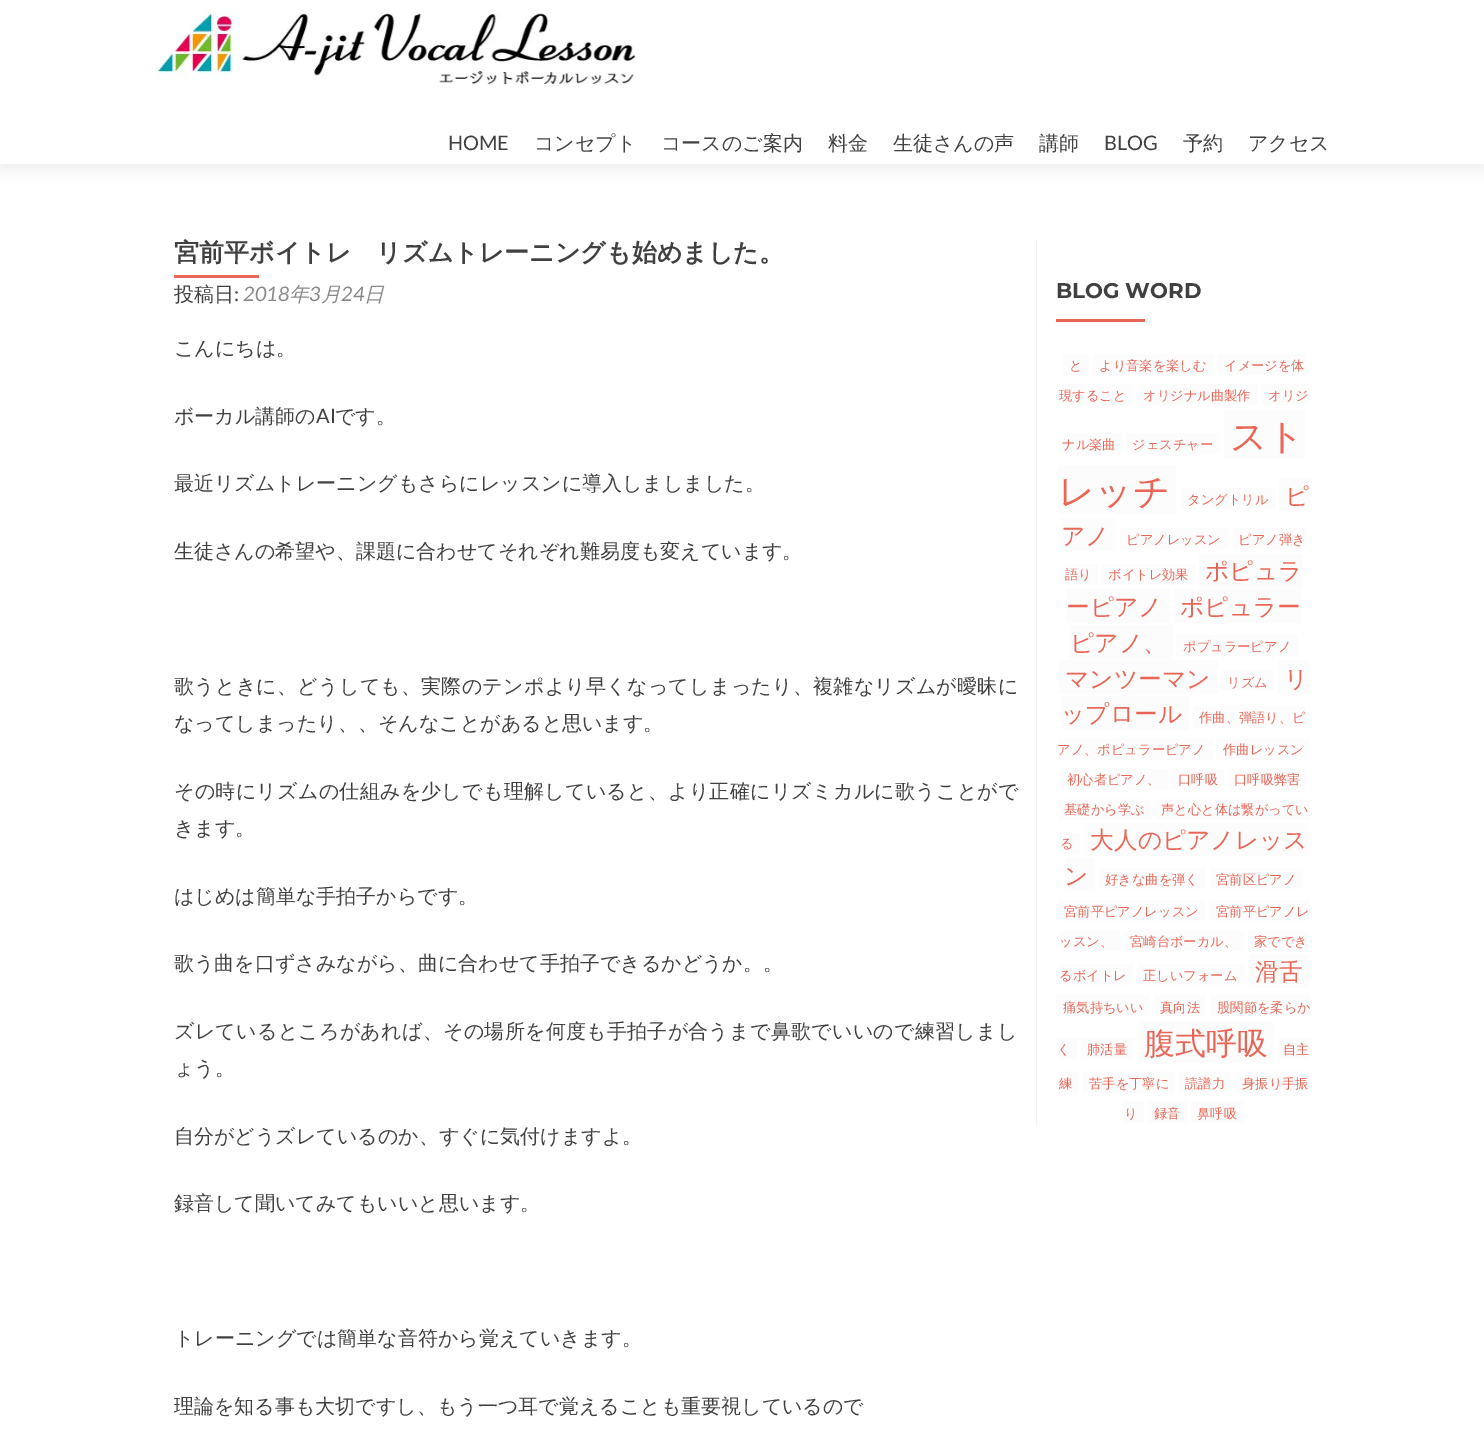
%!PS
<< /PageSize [1484 1436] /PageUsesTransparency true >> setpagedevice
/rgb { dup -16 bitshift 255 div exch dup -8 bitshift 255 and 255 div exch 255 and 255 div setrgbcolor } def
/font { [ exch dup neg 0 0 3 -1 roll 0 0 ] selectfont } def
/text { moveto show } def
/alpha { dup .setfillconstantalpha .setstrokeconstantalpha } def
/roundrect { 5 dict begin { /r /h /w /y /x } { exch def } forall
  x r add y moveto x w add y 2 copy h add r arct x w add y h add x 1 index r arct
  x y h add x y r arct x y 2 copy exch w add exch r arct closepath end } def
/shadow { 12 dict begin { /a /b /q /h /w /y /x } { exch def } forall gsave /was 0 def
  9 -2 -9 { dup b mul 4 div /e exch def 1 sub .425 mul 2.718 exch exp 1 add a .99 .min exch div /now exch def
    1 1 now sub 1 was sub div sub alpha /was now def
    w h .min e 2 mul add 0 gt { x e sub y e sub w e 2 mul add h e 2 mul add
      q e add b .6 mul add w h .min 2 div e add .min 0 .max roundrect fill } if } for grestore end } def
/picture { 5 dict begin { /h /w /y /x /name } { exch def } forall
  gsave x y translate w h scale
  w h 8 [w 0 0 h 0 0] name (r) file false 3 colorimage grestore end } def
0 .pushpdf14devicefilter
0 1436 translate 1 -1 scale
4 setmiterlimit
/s1 { /Lato-Regular 20 font 16#404040 rgb } def
/s2 { /WenQuanYiZenHei-Medium 20 font 16#404040 rgb } def
/s3 { /WenQuanYiZenHei-Bold 25 font 16#404040 rgb } def
/s4 { /Lato-Italic 20 font 16#888888 rgb } def
/s5 { /WenQuanYiZenHei-MediumItalic 20 font 16#888888 rgb } def
/s6 { /Montserrat-Bold 21.25 font 16#404040 rgb } def
/s7 { /WenQuanYiZenHei-Medium 13.25 font 16#E96656 rgb } def
/s8 { /WenQuanYiZenHei-Medium 36.5 font 16#E96656 rgb } def
/s9 { /WenQuanYiZenHei-Medium 23.75 font 16#E96656 rgb } def
/s10 { /WenQuanYiZenHei-Medium 31 font 16#E96656 rgb } def
16#FFFFFF rgb
0 0 1484 1436 rectfill
16#323232 rgb
0 6 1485 164 0 7 0.08 shadow
16#FFFFFF rgb
0 0 1484 164 rectfill
(pic1.raw) 155 10 481 76 picture
s1
(HOME) 448 150 text
s2
(コンセプト) 534 150 text
(コースのご案内) 661 150 text
(料金) 828 150 text
(生徒さんの声) 893 150 text
(講師) 1039 150 text
s1
(BLOG) 1104 150 text
s2
(予約) 1183 150 text
(アクセス) 1248 150 text
s3
(宮前平ボイトレ　リズムトレーニングも始めました。) 174 261 text
16#E96656 rgb
174 275 85 3 rectfill
s2
(投稿日) 174 301 text
s1
(:) 234 301 text
s4
(2018) 243 301 text
s5
(年) 289 301 text
s4
(3) 309 301 text
s5
(月) 321 301 text
s4
(24) 341 301 text
s5
(日) 364 301 text
s2
(こんにちは。) 174 355 text
(ボーカル講師の) 174 423 text
s1
(AI) 316 423 text
s2
(です。) 335 423 text
(最近リズムトレーニングもさらにレッスンに導入しましました。) 174 490 text
(生徒さんの希望や、課題に合わせてそれぞれ難易度も変えています。) 174 558 text
174 693 moveto 0.25 0 (歌うときに、どうしても、実際のテンポより早くなってしまったり、複雑なリズムが曖昧に) ashow
(なってしまったり、、そんなことがあると思います。) 174 730 text
174 798 moveto 0.25 0 (その時にリズムの仕組みを少しでも理解していると、より正確にリズミカルに歌うことがで) ashow
(きます。) 174 835 text
(はじめは簡単な手拍子からです。) 174 903 text
(歌う曲を口ずさみながら、曲に合わせて手拍子できるかどうか。。) 174 970 text
174 1038 moveto 0.25 0 (ズレているところがあれば、その場所を何度も手拍子が合うまで鼻歌でいいので練習しまし) ashow
(ょう。) 174 1075 text
(自分がどうズレているのか、すぐに気付けますよ。) 174 1143 text
(録音して聞いてみてもいいと思います。) 174 1210 text
(トレーニングでは簡単な音符から覚えていきます。) 174 1345 text
(理論を知る事も大切ですし、もう一つ耳で覚えることも重要視しているので) 174 1413 text
16#F2F2F2 rgb
1036 239 1 886 rectfill
s6
(BLOG WORD) 1056 298 text
16#E96656 rgb
1056 319 89 3 rectfill
16#FCFCFC rgb
1063 354 26 21 rectfill
s7
(と) 1069 370 text
16#FCFCFC rgb
1093 354 121 21 rectfill
s7
(より音楽を楽しむ) 1099 370 text
16#FCFCFC rgb
1218 354 87 21 rectfill
s7
(イメージを体) 1224 370 text
16#FCFCFC rgb
1059 384 74 21 rectfill
s7
(現すること) 1059 400 text
16#FCFCFC rgb
1138 384 120 21 rectfill
s7
(オリジナル曲製作) 1143 400 text
16#FCFCFC rgb
1261 384 48 21 rectfill
s7
(オリジ) 1268 400 text
16#FCFCFC rgb
1063 433 60 21 rectfill
s7
(ナル楽曲) 1062 449 text
16#FCFCFC rgb
1126 433 94 21 rectfill
s7
(ジェスチャー) 1132 449 text
16#FCFCFC rgb
1224 410 81 49 rectfill
s8
(スト) 1230 449 text
16#FCFCFC rgb
1058 465 118 49 rectfill
s8
(レッチ) 1058 504 text
16#FCFCFC rgb
1181 488 94 21 rectfill
s7
(タングトリル) 1187 504 text
16#FCFCFC rgb
1279 478 31 33 rectfill
s9
(ピ) 1285 504 text
16#FCFCFC rgb
1061 518 55 33 rectfill
s9
(アノ) 1061 544 text
16#FCFCFC rgb
1120 528 109 21 rectfill
s7
(ピアノレッスン) 1126 544 text
16#FCFCFC rgb
1233 528 73 21 rectfill
s7
(ピアノ弾き) 1238 544 text
16#FCFCFC rgb
1065 564 33 21 rectfill
s7
(語り) 1065 579 text
16#FCFCFC rgb
1101 564 94 21 rectfill
s7
(ボイトレ効果) 1108 579 text
16#FCFCFC rgb
1199 554 104 34 rectfill
s9
(ポピュラ) 1205 579 text
16#FCFCFC rgb
1066 589 104 34 rectfill
s9
(ーピアノ) 1066 615 text
16#FCFCFC rgb
1174 589 127 34 rectfill
s9
(ポピュラー) 1180 615 text
16#FCFCFC rgb
1070 625 103 34 rectfill
s9
(ピアノ、) 1070 651 text
16#FCFCFC rgb
1176 635 122 21 rectfill
s7
(ポプュラーピアノ) 1183 651 text
16#FCFCFC rgb
1059 660 159 34 rectfill
s9
(マンツーマン) 1065 687 text
16#FCFCFC rgb
1221 670 53 21 rectfill
s7
(リズム) 1227 687 text
16#FCFCFC rgb
1278 660 31 34 rectfill
s9
(リ) 1284 687 text
16#FCFCFC rgb
1061 696 128 34 rectfill
s9
(ップロール) 1061 722 text
16#FCFCFC rgb
1193 706 113 22 rectfill
s7
(作曲、弾語り、ピ) 1199 722 text
16#FCFCFC rgb
1058 739 155 21 rectfill
s7
(アノ、ポピュラーピアノ) 1057 754 text
16#FCFCFC rgb
1216 739 94 21 rectfill
s7
(作曲レッスン) 1223 754 text
16#FCFCFC rgb
1061 769 107 21 rectfill
s7
(初心者ピアノ、) 1067 784 text
16#FCFCFC rgb
1171 769 53 21 rectfill
s7
(口呼吸) 1178 784 text
16#FCFCFC rgb
1228 769 78 21 rectfill
s7
(口呼吸弊害) 1234 784 text
16#FCFCFC rgb
1058 799 93 21 rectfill
s7
(基礎から学ぶ) 1064 814 text
16#FCFCFC rgb
1155 799 155 21 rectfill
s7
(声と心と体は繋がってい) 1161 814 text
16#FCFCFC rgb
1060 833 20 21 rectfill
s7
(る) 1060 848 text
16#FCFCFC rgb
1084 823 224 33 rectfill
s9
(大人のピアノレッス) 1090 848 text
16#FCFCFC rgb
1065 858 30 33 rectfill
s9
(ン) 1064 884 text
16#FCFCFC rgb
1099 868 107 21 rectfill
s7
(好きな曲を弾く) 1105 884 text
16#FCFCFC rgb
1210 868 93 21 rectfill
s7
(宮前区ピアノ) 1216 884 text
16#FCFCFC rgb
1058 900 147 21 rectfill
s7
(宮前平ピアノレッスン) 1064 916 text
16#FCFCFC rgb
1209 900 101 21 rectfill
s7
(宮前平ピアノレ) 1216 916 text
16#FCFCFC rgb
1060 930 60 21 rectfill
s7
(ッスン、) 1059 946 text
16#FCFCFC rgb
1124 930 120 21 rectfill
s7
(宮崎台ボーカル、) 1130 946 text
16#FCFCFC rgb
1248 930 60 21 rectfill
s7
(家ででき) 1254 946 text
16#FCFCFC rgb
1059 964 75 21 rectfill
s7
(るボイトレ) 1059 980 text
16#FCFCFC rgb
1138 964 107 21 rectfill
s7
(正しいフォーム) 1143 980 text
16#FCFCFC rgb
1249 954 60 34 rectfill
s9
(滑舌) 1255 980 text
16#FCFCFC rgb
1056 995 94 21 rectfill
s7
(痛気持ちいい) 1063 1012 text
16#FCFCFC rgb
1154 995 52 21 rectfill
s7
(真向法) 1160 1012 text
16#FCFCFC rgb
1210 995 101 21 rectfill
s7
(股関節を柔らか) 1217 1012 text
16#FCFCFC rgb
1058 1038 20 21 rectfill
s7
(く) 1057 1054 text
16#FCFCFC rgb
1081 1038 53 21 rectfill
s7
(肺活量) 1087 1054 text
16#FCFCFC rgb
1138 1021 136 42 rectfill
s10
(腹式呼吸) 1144 1054 text
16#FCFCFC rgb
1278 1038 32 21 rectfill
s7
(自主) 1283 1054 text
16#FCFCFC rgb
1059 1071 20 22 rectfill
s7
(練) 1059 1088 text
16#FCFCFC rgb
1083 1071 92 22 rectfill
s7
(苦手を丁寧に) 1089 1088 text
16#FCFCFC rgb
1179 1071 52 22 rectfill
s7
(読譜力) 1185 1088 text
16#FCFCFC rgb
1235 1071 74 22 rectfill
s7
(身振り手振) 1242 1088 text
16#FCFCFC rgb
1124 1101 20 22 rectfill
s7
(り) 1124 1118 text
16#FCFCFC rgb
1148 1101 40 22 rectfill
s7
(録音) 1154 1118 text
16#FCFCFC rgb
1191 1101 53 22 rectfill
s7
(鼻呼吸) 1197 1118 text
.poppdf14devicefilter showpage
